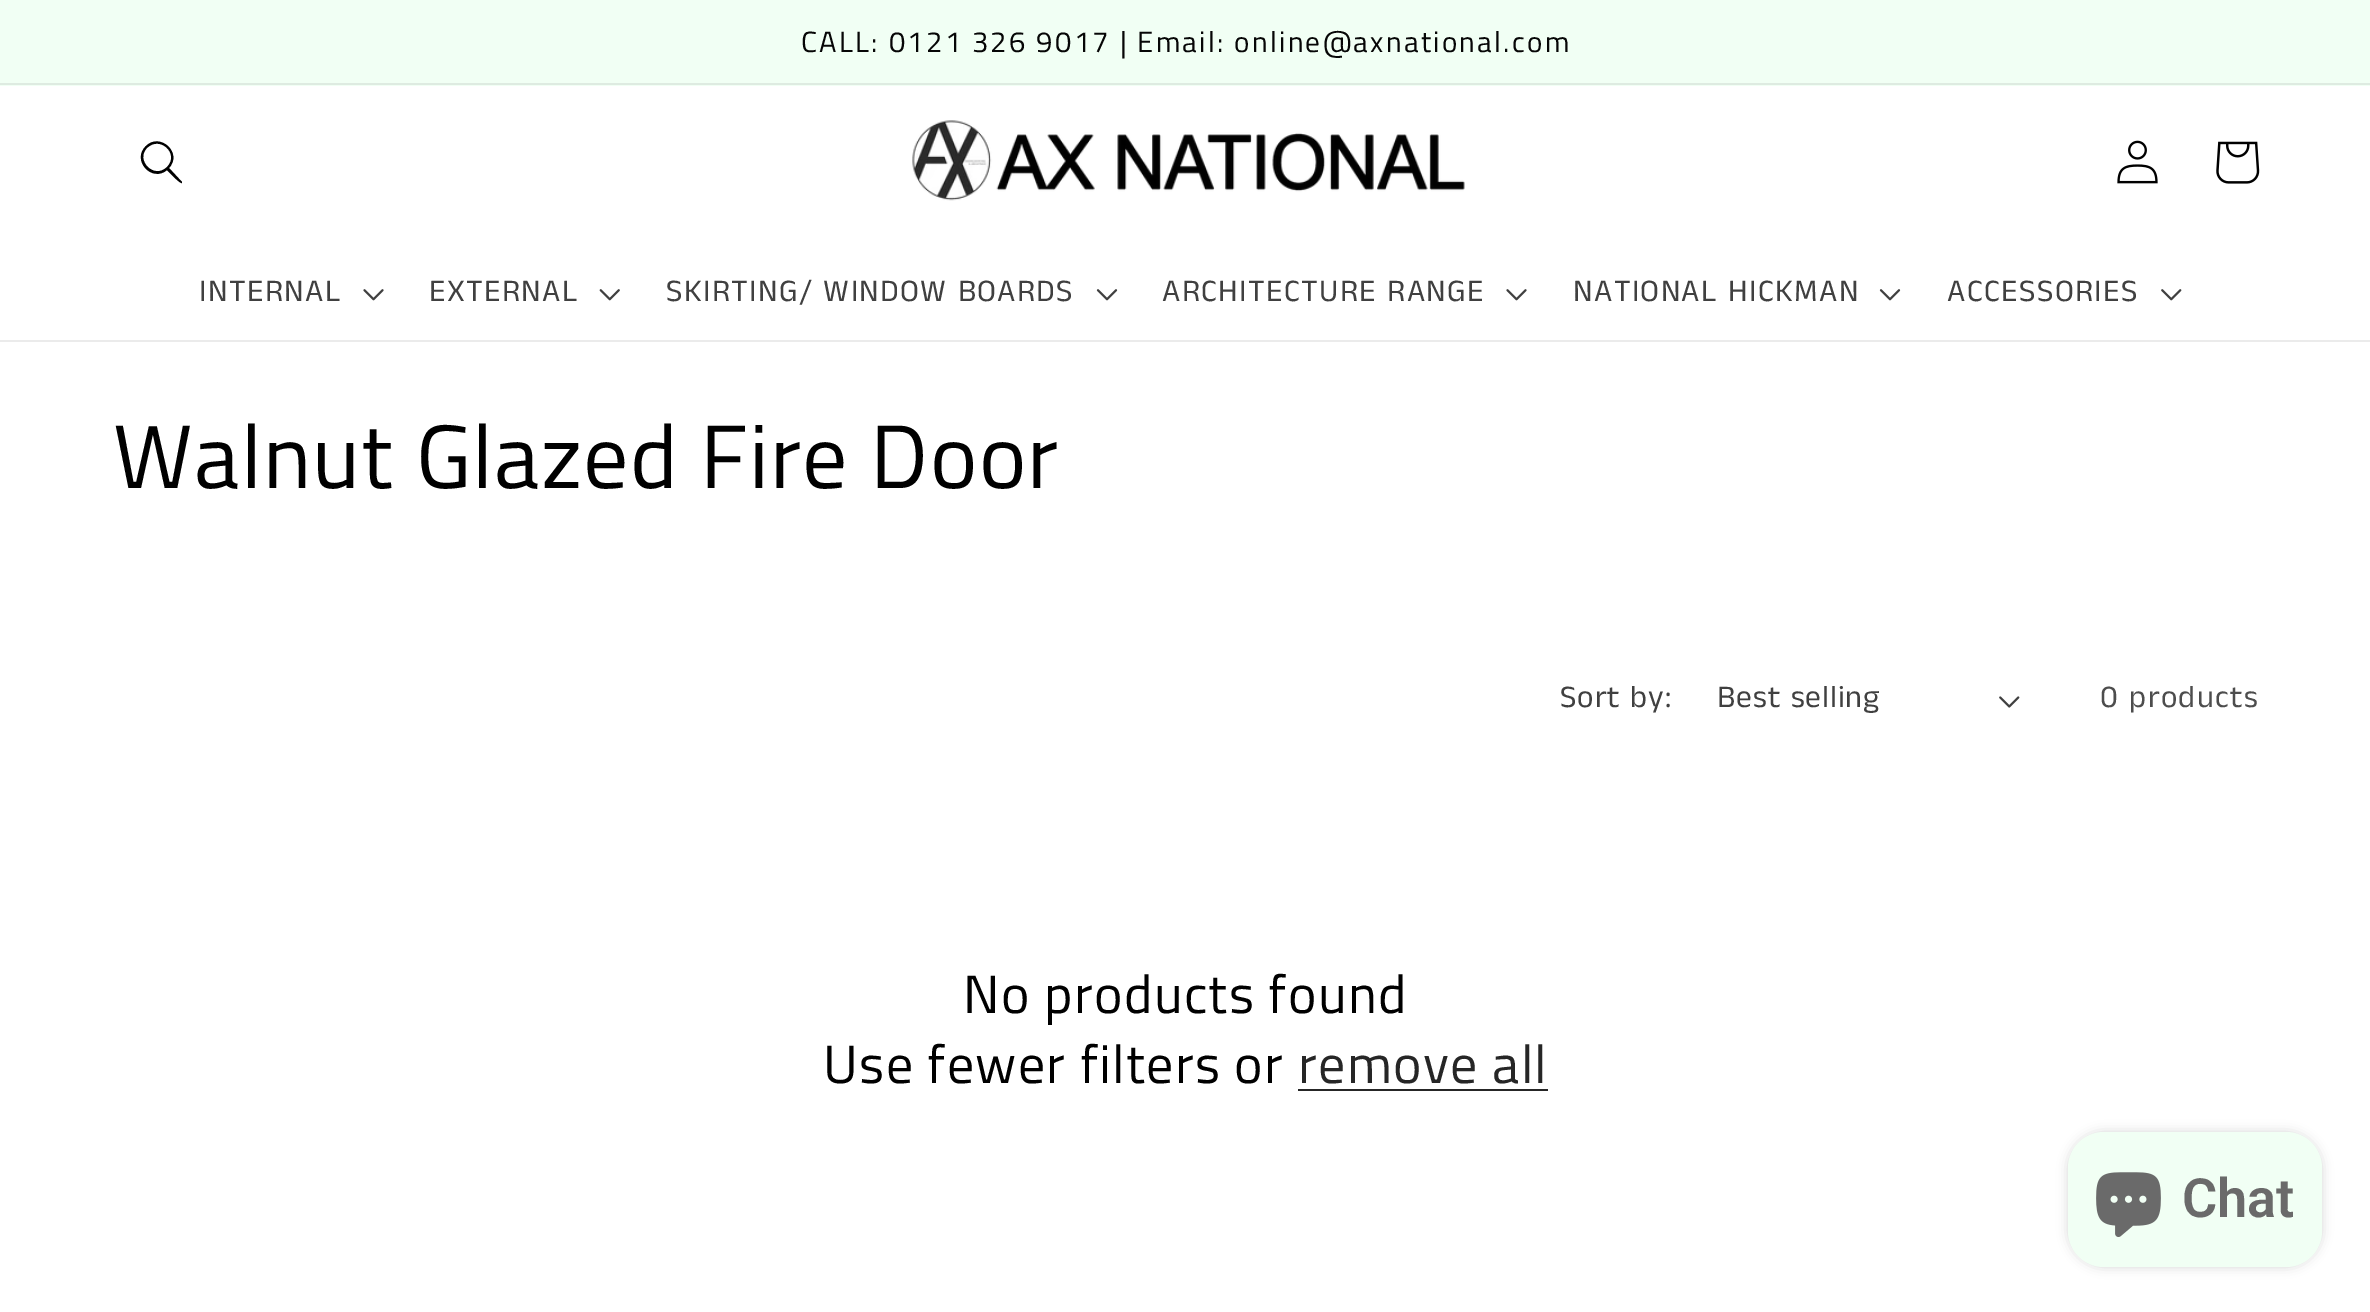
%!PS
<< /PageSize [2370 1312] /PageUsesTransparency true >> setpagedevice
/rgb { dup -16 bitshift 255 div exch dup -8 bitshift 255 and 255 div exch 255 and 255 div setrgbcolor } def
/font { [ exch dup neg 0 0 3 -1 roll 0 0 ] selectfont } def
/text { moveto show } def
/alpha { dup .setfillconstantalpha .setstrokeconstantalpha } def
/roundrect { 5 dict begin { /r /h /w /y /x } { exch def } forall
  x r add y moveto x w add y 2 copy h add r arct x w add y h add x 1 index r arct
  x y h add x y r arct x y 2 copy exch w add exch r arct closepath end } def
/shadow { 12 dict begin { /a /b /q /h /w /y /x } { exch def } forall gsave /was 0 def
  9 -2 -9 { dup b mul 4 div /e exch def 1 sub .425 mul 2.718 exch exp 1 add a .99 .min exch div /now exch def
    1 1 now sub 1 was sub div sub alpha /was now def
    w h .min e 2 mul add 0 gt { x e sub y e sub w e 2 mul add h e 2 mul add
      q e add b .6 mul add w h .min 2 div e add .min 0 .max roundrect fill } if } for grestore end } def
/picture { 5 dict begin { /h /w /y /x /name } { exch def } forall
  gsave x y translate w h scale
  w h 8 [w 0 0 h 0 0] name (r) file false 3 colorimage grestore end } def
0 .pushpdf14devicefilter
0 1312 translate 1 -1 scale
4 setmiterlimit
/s1 { /Roboto-SemiBold 54 font 16#6A6A6A rgb } def
16#FFFFFF rgb
0 0 2370 1312 rectfill
16#F1FFF4 rgb
0 0 2370 86 rectfill
16#DEEBE1 rgb
0 83 2370 2 rectfill
/TitilliumWeb-Regular 29.25 font
16#060606 rgb
801 52 moveto 2.25 0 (CALL: 0121 326 9017 | Email: online@axnational.com) ashow
16#EBEBEB rgb
0 340 2370 2 rectfill
16#000000 rgb
167 167 moveto 154 180 135 160 147 148 curveto 160 135 180 154 167 167 curveto closepath 167 170 moveto 152 183 131 160 146 146 curveto 160 132 183 153 169 168 curveto 182 182 lineto 182 183 lineto 180 184 169 172 167 170 curveto closepath eofill
(pic1.raw) 912 120 553 81 picture
(pic2.raw) 2117 140 41 44 picture
(pic3.raw) 2216 141 44 43 picture
/AnekTamil-Regular 31.5 font
16#404040 rgb
199 301 moveto 1.35 0 (INTERNAL) ashow
(pic4.raw) 363 289 21 12 picture
429 301 moveto 1.35 0 (EXTERNAL) ashow
(pic5.raw) 599 289 21 12 picture
666 301 moveto 1.35 0 (SKIRTING/ WINDOW BOARDS) ashow
(pic6.raw) 1096 289 22 12 picture
1162 301 moveto 1.35 0 (ARCHITECTURE RANGE) ashow
(pic4.raw) 1506 289 21 12 picture
1573 301 moveto 1.35 0 (NATIONAL HICKMAN) ashow
(pic6.raw) 1879 289 22 12 picture
1947 301 moveto 1.35 0 (ACCESSORIES) ashow
(pic7.raw) 2161 289 21 12 picture
/TitilliumWeb-Regular 90 font
16#000000 rgb
113 488 moveto 1.35 0 (Walnut Glazed Fire Door) ashow
/AnekTamil-Regular 31.5 font
16#404040 rgb
1560 707 moveto 0.9 0 (Sort by:) ashow
1717 707 moveto 0.9 0 (Best selling) ashow
(pic8.raw) 1999 696 21 12 picture
16#4D4D4D rgb
2100 707 moveto 1.35 0 (0 products) ashow
/TitilliumWeb-Regular 54 font
16#000000 rgb
963 1013 moveto 1.35 0 (No products found) ashow
823 1083 moveto 1.35 0 (Use fewer filters or) ashow
16#262626 rgb
1298 1083 moveto 1.35 0 (remove all) ashow
1298 1089 250 2 rectfill
16#000000 rgb
2068 1132 254 135 36 5.5 0.15 shadow
16#F1FFF4 rgb
2068 1132 254 135 36 roundrect fill
(pic9.raw) 2096 1172 65 65 picture
s1
(Chat) 2182 1217 text
.poppdf14devicefilter showpage
